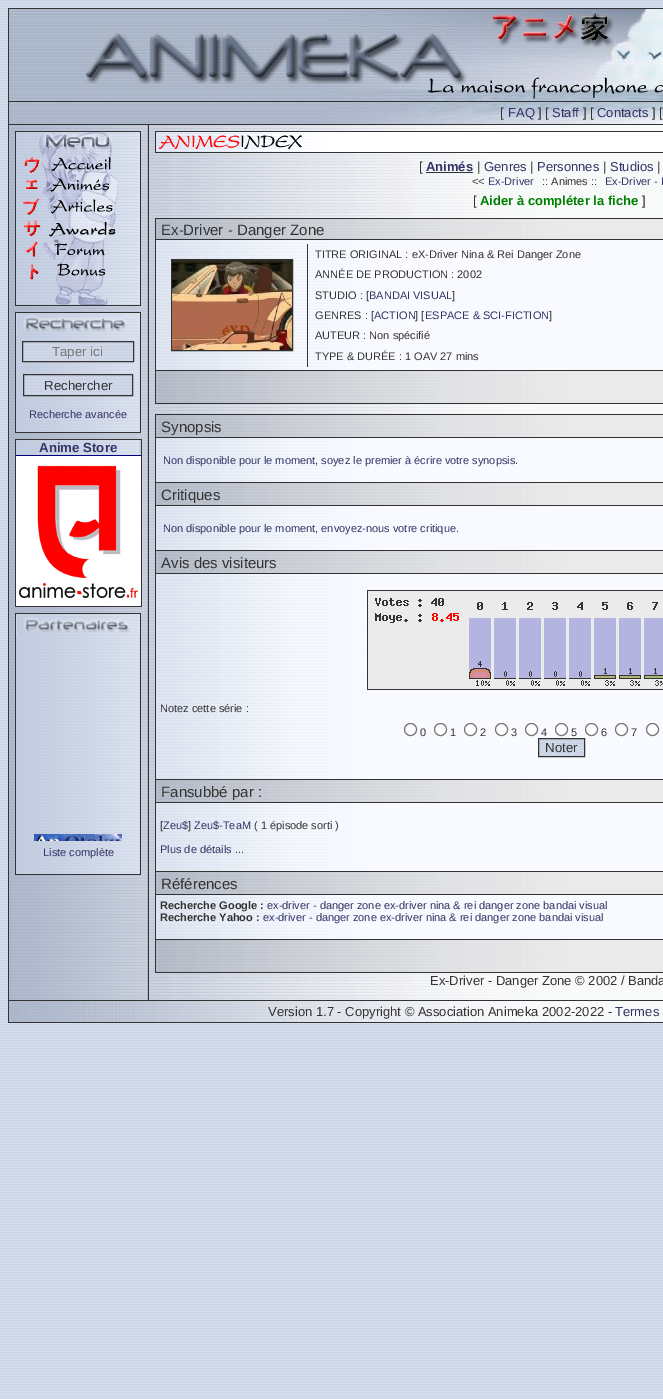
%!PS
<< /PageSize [663 1399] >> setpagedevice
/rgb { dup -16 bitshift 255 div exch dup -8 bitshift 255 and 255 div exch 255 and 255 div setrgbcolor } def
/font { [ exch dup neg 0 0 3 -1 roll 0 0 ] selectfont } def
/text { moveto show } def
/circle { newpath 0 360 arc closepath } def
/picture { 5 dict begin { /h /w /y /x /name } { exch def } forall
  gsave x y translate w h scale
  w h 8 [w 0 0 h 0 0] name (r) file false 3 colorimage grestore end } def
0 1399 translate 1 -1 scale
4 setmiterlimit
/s1 { /LiberationSans-Regular 13 font 16#333333 rgb } def
/s2 { /LiberationSans-Regular 13 font 16#333366 rgb } def
/s3 { /LiberationSans-Regular 13.25 font 16#757575 rgb } def
/s4 { /LiberationSans-Regular 13.25 font 16#333333 rgb } def
/s5 { /LiberationSans-Regular 11 font 16#333366 rgb } def
/s6 { /LiberationSans-Bold 13.25 font 16#333366 rgb } def
/s7 { /LiberationSans-Bold 13 font 16#333366 rgb } def
/s8 { /LiberationSans-Regular 11 font 16#333333 rgb } def
/s9 { /LiberationSans-Bold 13 font 16#008000 rgb } def
/s10 { /LiberationSans-Regular 15 font 16#333333 rgb } def
/s11 { /LiberationSans-Bold 11 font 16#333333 rgb } def
16#FFFFFF rgb
0 0 663 1399 rectfill
(pic1.raw) 0 0 663 1399 picture
16#333333 rgb
8 8 655 1 rectfill
8 1022 655 1 rectfill
8 8 1 1015 rectfill
(pic2.raw) 9 9 654 92 picture
(pic3.raw) 9 102 654 22 picture
9 101 654 1 rectfill
9 124 654 1 rectfill
s1
([) 500 117 text
s2
(FAQ) 508 117 text
s1
(] [) 538 117 text
s2
(Staff) 552 117 text
s1
(] [) 583 117 text
s2
(Contacts) 597 117 text
s1
(] [) 652 117 text
(pic4.raw) 9 125 139 875 picture
148 125 1 876 rectfill
15 131 126 1 rectfill
140 131 1 175 rectfill
15 305 126 1 rectfill
15 131 1 175 rectfill
(pic5.raw) 16 132 124 173 picture
(pic6.raw) 39 135 3 18 picture
(pic7.raw) 42 132 70 21 picture
(pic8.raw) 24 156 16 17 picture
(pic9.raw) 42 153 70 22 picture
(pic10.raw) 25 180 14 9 picture
(pic11.raw) 42 175 76 22 picture
(pic12.raw) 23 198 17 17 picture
(pic13.raw) 47 197 71 22 picture
(pic14.raw) 24 220 17 16 picture
(pic15.raw) 48 219 68 22 picture
(pic16.raw) 26 241 12 16 picture
(pic17.raw) 42 241 63 22 picture
(pic18.raw) 30 264 9 16 picture
(pic19.raw) 56 263 50 22 picture
(pic20.raw) 55 285 53 20 picture
(pic21.raw) 16 335 124 97 picture
15 312 126 1 rectfill
140 312 1 121 rectfill
15 432 126 1 rectfill
15 312 1 121 rectfill
(pic22.raw) 16 313 124 22 picture
(pic23.raw) 23 342 110 19 picture
22.5 341.5 111 20 rectstroke
s3
(Taper ici) 52 356 text
(pic24.raw) 24 375 108 20 picture
16#333333 rgb
23.5 374.5 109 21 rectstroke
(Rechercher) 44 390 text
s5
(Recherche avancée) 29 418 text
(pic25.raw) 16 440 125 15 picture
16#333333 rgb
15 439 127 1 rectfill
141 439 1 168 rectfill
15 606 127 1 rectfill
15 439 1 168 rectfill
s6
(Anime Store) 39 452 text
16#000080 rgb
16 455 125 1 rectfill
(pic26.raw) 16 456 125 150 picture
(pic27.raw) 16 636 124 238 picture
16#333333 rgb
15 613 126 1 rectfill
140 613 1 262 rectfill
15 874 126 1 rectfill
15 613 1 262 rectfill
(pic28.raw) 16 614 124 22 picture
(pic29.raw) 34 834 88 7 picture
s5
(Liste complète) 43 856 text
(pic30.raw) 149 125 514 875 picture
(pic31.raw) 155 131 508 22 picture
s1
([) 419 171 text
s7
(Animés) 426 171 text
16#333333 rgb
426 172 47 1 rectfill
s1
(|) 477 171 text
s2
(Genres) 484 171 text
s1
(|) 530 171 text
s2
(Personnes) 537 171 text
s1
(|) 603 171 text
s2
(Studios) 610 171 text
s1
(|) 657 171 text
s8
(<<) 472 185 text
s5
(Ex-Driver) 488 185 text
s8
(:: Animes ::) 542 185 text
s5
(Ex-Driver - L) 605 185 text
s1
([) 473 205 text
s9
(Aider à compléter la fiche) 480 205 text
s1
(]) 642 205 text
(pic32.raw) 156 240 507 131 picture
155 218 508 1 rectfill
155 403 508 1 rectfill
155 218 1 186 rectfill
(pic33.raw) 156 219 507 20 picture
155 239 508 1 rectfill
s10
(Ex-Driver - Danger Zone) 161 235 text
307 244 1 123 rectfill
171.5 259.5 121 91 rectstroke
(pic34.raw) 172 260 120 90 picture
s8
(TITRE ORIGINAL : eX-Driver Nina & Rei Danger Zone) 315 258 text
(ANNÉE DE PRODUCTION : 2002) 315 278 text
(STUDIO : [) 315 299 text
s5
(BANDAI VISUAL) 369 299 text
s8
(]) 452 299 text
(GENRES : [) 315 319 text
s5
(ACTION) 374 319 text
s8
(] [) 415 319 text
s5
(ESPACE & SCI-FICTION) 425 319 text
s8
(]) 549 319 text
(AUTEUR : Non spécifié) 315 339 text
(TYPE & DURÉE : 1 OAV 27 mins) 315 360 text
(pic35.raw) 156 371 507 32 picture
(pic36.raw) 156 414 507 526 picture
155 972 508 1 rectfill
155 414 1 559 rectfill
(pic37.raw) 156 415 507 22 picture
s10
(Synopsis) 161 432 text
s5
(Non disponible pour le moment, soyez le premier à écrire votre synopsis.) 163 464 text
(pic37.raw) 156 483 507 22 picture
s10
(Critiques) 161 500 text
s5
(Non disponible pour le moment, envoyez-nous votre critique.) 163 532 text
(pic37.raw) 156 551 507 22 picture
s10
(Avis des visiteurs) 161 568 text
(pic38.raw) 367 590 296 100 picture
s8
(Notez cette série :) 160 712 text
16#FFFFFF rgb
410.5 729.5 6 circle gsave fill grestore
16#767676 rgb
stroke
s8
(0) 420 736 text
16#FFFFFF rgb
440.5 729.5 6 circle gsave fill grestore
16#767676 rgb
stroke
s8
(1) 450 736 text
16#FFFFFF rgb
470.5 729.5 6 circle gsave fill grestore
16#767676 rgb
stroke
s8
(2) 480 736 text
16#FFFFFF rgb
501.5 729.5 6 circle gsave fill grestore
16#767676 rgb
stroke
s8
(3) 511 736 text
16#FFFFFF rgb
531.5 729.5 6 circle gsave fill grestore
16#767676 rgb
stroke
s8
(4) 541 736 text
16#FFFFFF rgb
561.5 729.5 6 circle gsave fill grestore
16#767676 rgb
stroke
s8
(5) 571 736 text
16#FFFFFF rgb
591.5 729.5 6 circle gsave fill grestore
16#767676 rgb
stroke
s8
(6) 601 736 text
16#FFFFFF rgb
621.5 729.5 6 circle gsave fill grestore
16#767676 rgb
stroke
s8
(7) 631 736 text
16#FFFFFF rgb
652.5 729.5 6 circle gsave fill grestore
16#767676 rgb
stroke
(pic39.raw) 539 739 45 17 picture
16#333333 rgb
538.5 738.5 46 18 rectstroke
s4
(Noter) 545 752 text
(pic37.raw) 156 780 507 22 picture
s10
(Fansubbé par :) 161 797 text
s8
([) 160 829 text
s5
(Zeu$) 163 829 text
s8
(]) 188 829 text
s5
(Zeu$-TeaM) 194 829 text
s8
(\( 1 épisode sorti \)) 254 829 text
s5
(Plus de détails ...) 160 853 text
(pic37.raw) 156 872 507 22 picture
s10
(Références) 161 889 text
s11
(Recherche Google :) 160 909 text
s5
(ex-driver - danger zone ex-driver nina & rei danger zone bandai visual) 267 909 text
s11
(Recherche Yahoo :) 160 921 text
s5
(ex-driver - danger zone ex-driver nina & rei danger zone bandai visual) 263 921 text
(pic35.raw) 156 940 507 32 picture
s1
(Ex-Driver - Danger Zone © 2002 / Banda) 430 985 text
(pic40.raw) 9 1001 654 21 picture
9 1000 654 1 rectfill
(Version 1.7 - Copyright © Association Animeka 2002-2022 -) 268 1016 text
s2
(Termes) 615 1016 text
showpage
